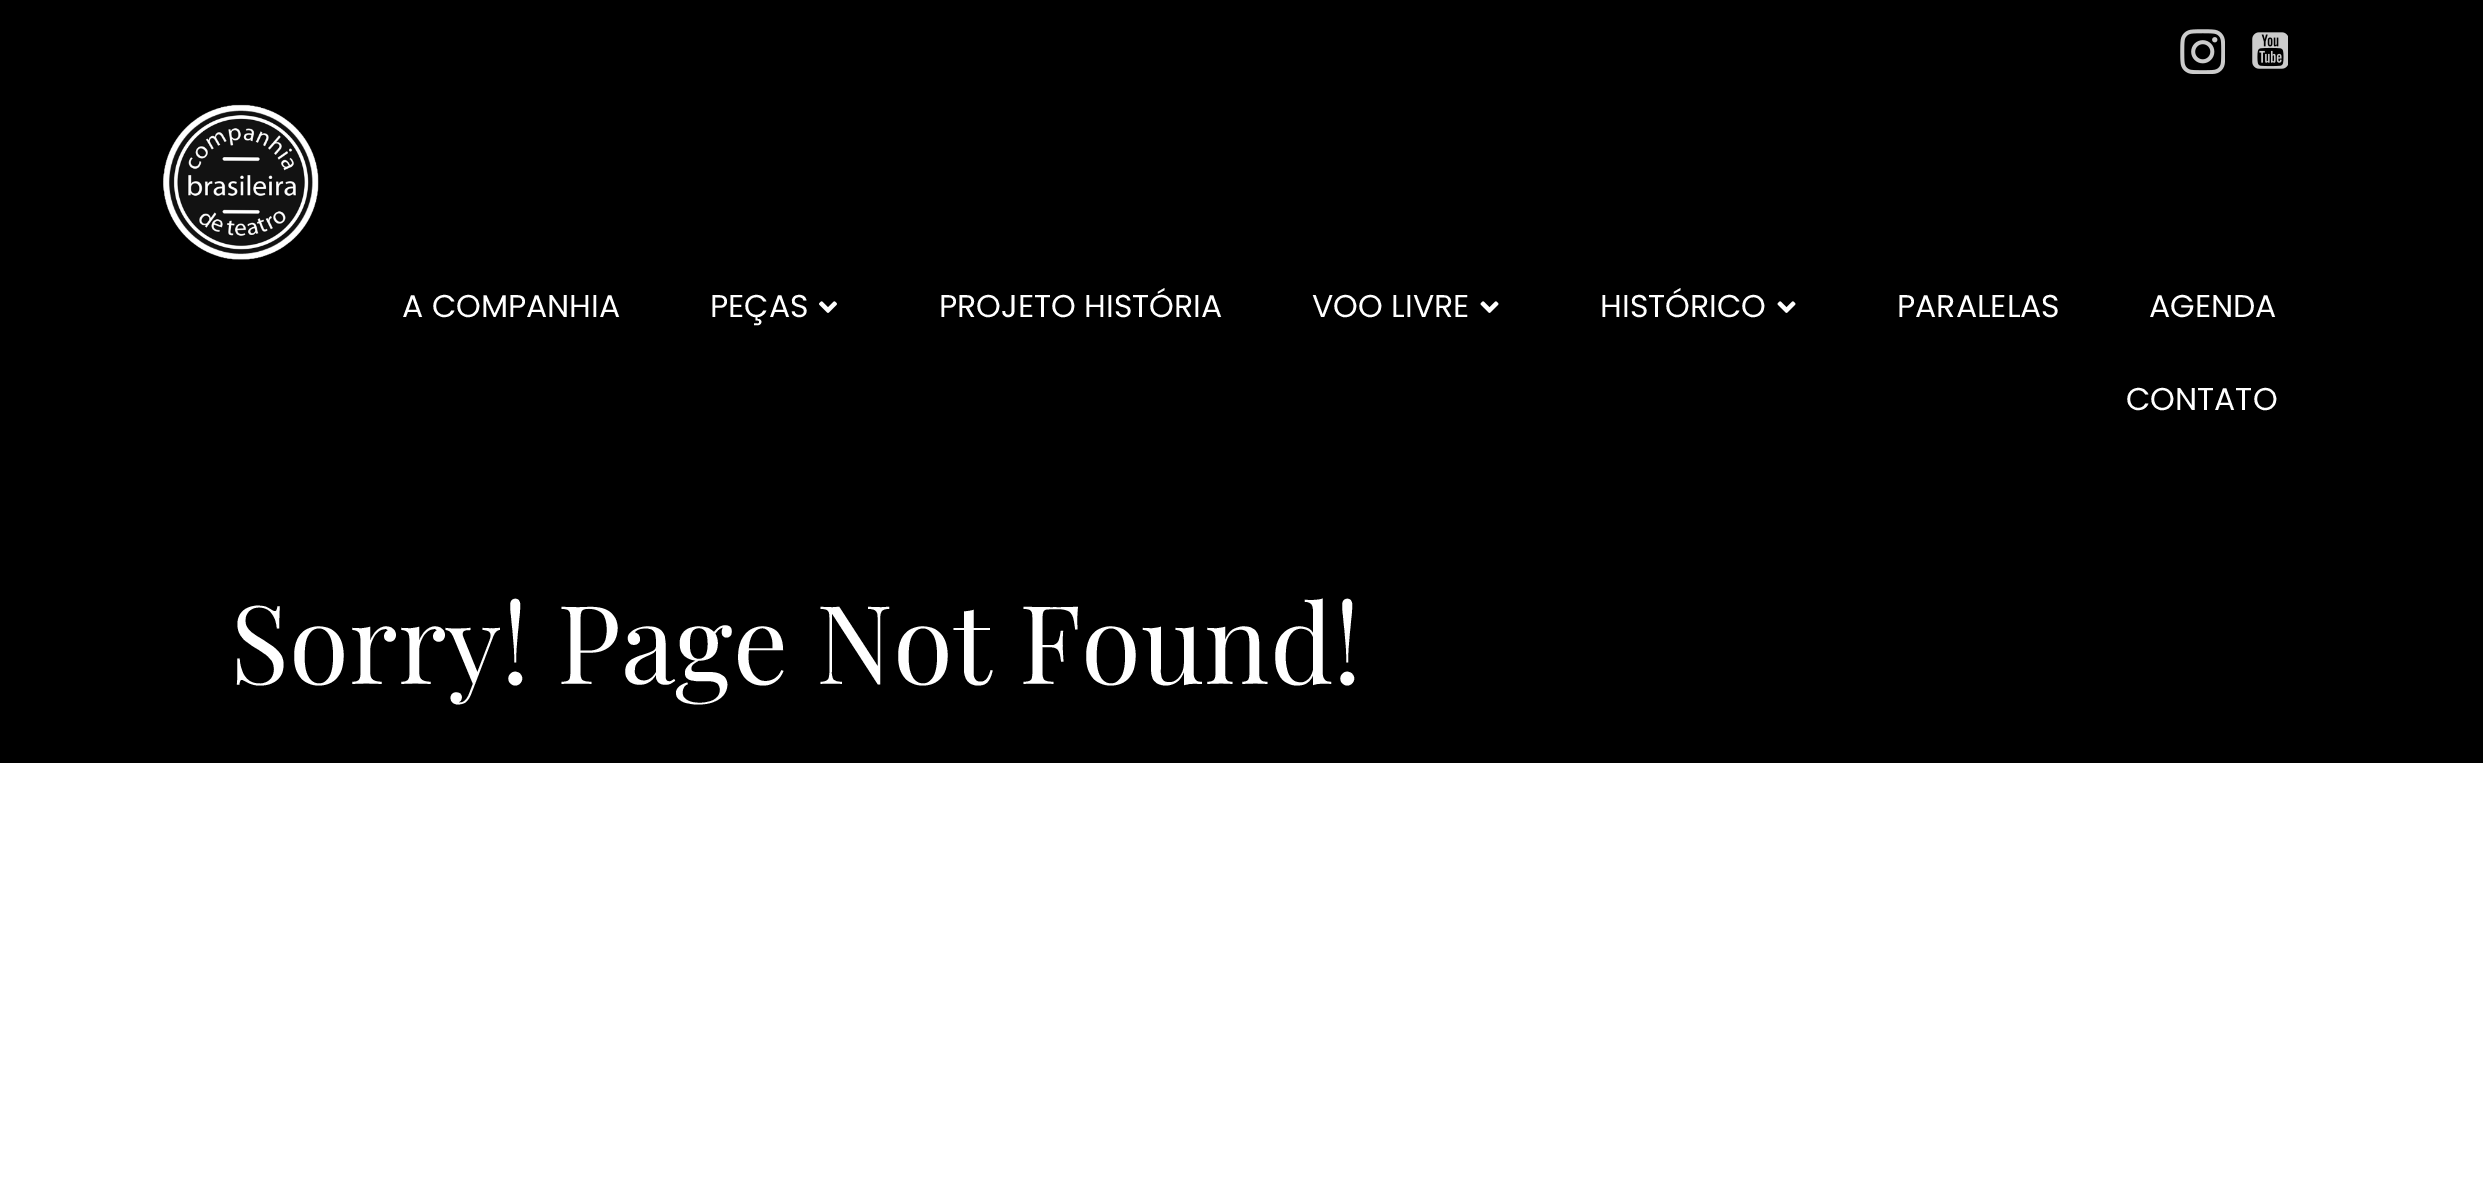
%!PS
<< /PageSize [2483 1184] >> setpagedevice
/rgb { dup -16 bitshift 255 div exch dup -8 bitshift 255 and 255 div exch 255 and 255 div setrgbcolor } def
/font { [ exch dup neg 0 0 3 -1 roll 0 0 ] selectfont } def
/text { moveto show } def
/picture { 5 dict begin { /h /w /y /x /name } { exch def } forall
  gsave x y translate w h scale
  w h 8 [w 0 0 h 0 0] name (r) file false 3 colorimage grestore end } def
0 1184 translate 1 -1 scale
4 setmiterlimit
/s1 { /Poppins-Regular 31.5 font 16#FFFFFF rgb } def
/s2 { /PlayfairDisplay-Regular 109.3 font 16#FFFFFF rgb } def
16#000000 rgb
0 0 2483 1184 rectfill
(pic1.raw) 2180 29 45 45 picture
(pic2.raw) 2252 32 36 37 picture
(pic3.raw) 163 104 156 156 picture
s1
(A COMPANHIA) 402 317 text
(PEÇAS) 710 317 text
(pic4.raw) 819 301 18 12 picture
(PROJETO HISTÓRIA) 939 317 text
(VOO LIVRE) 1312 317 text
(pic5.raw) 1480 301 19 12 picture
(HISTÓRICO) 1600 317 text
(pic5.raw) 1777 301 19 12 picture
(PARALELAS) 1897 317 text
(AGENDA) 2149 317 text
(CONTATO) 2126 410 text
s2
(Sorry! Page Not Found!) 230 684 text
0 763 2483 421 rectfill
showpage
